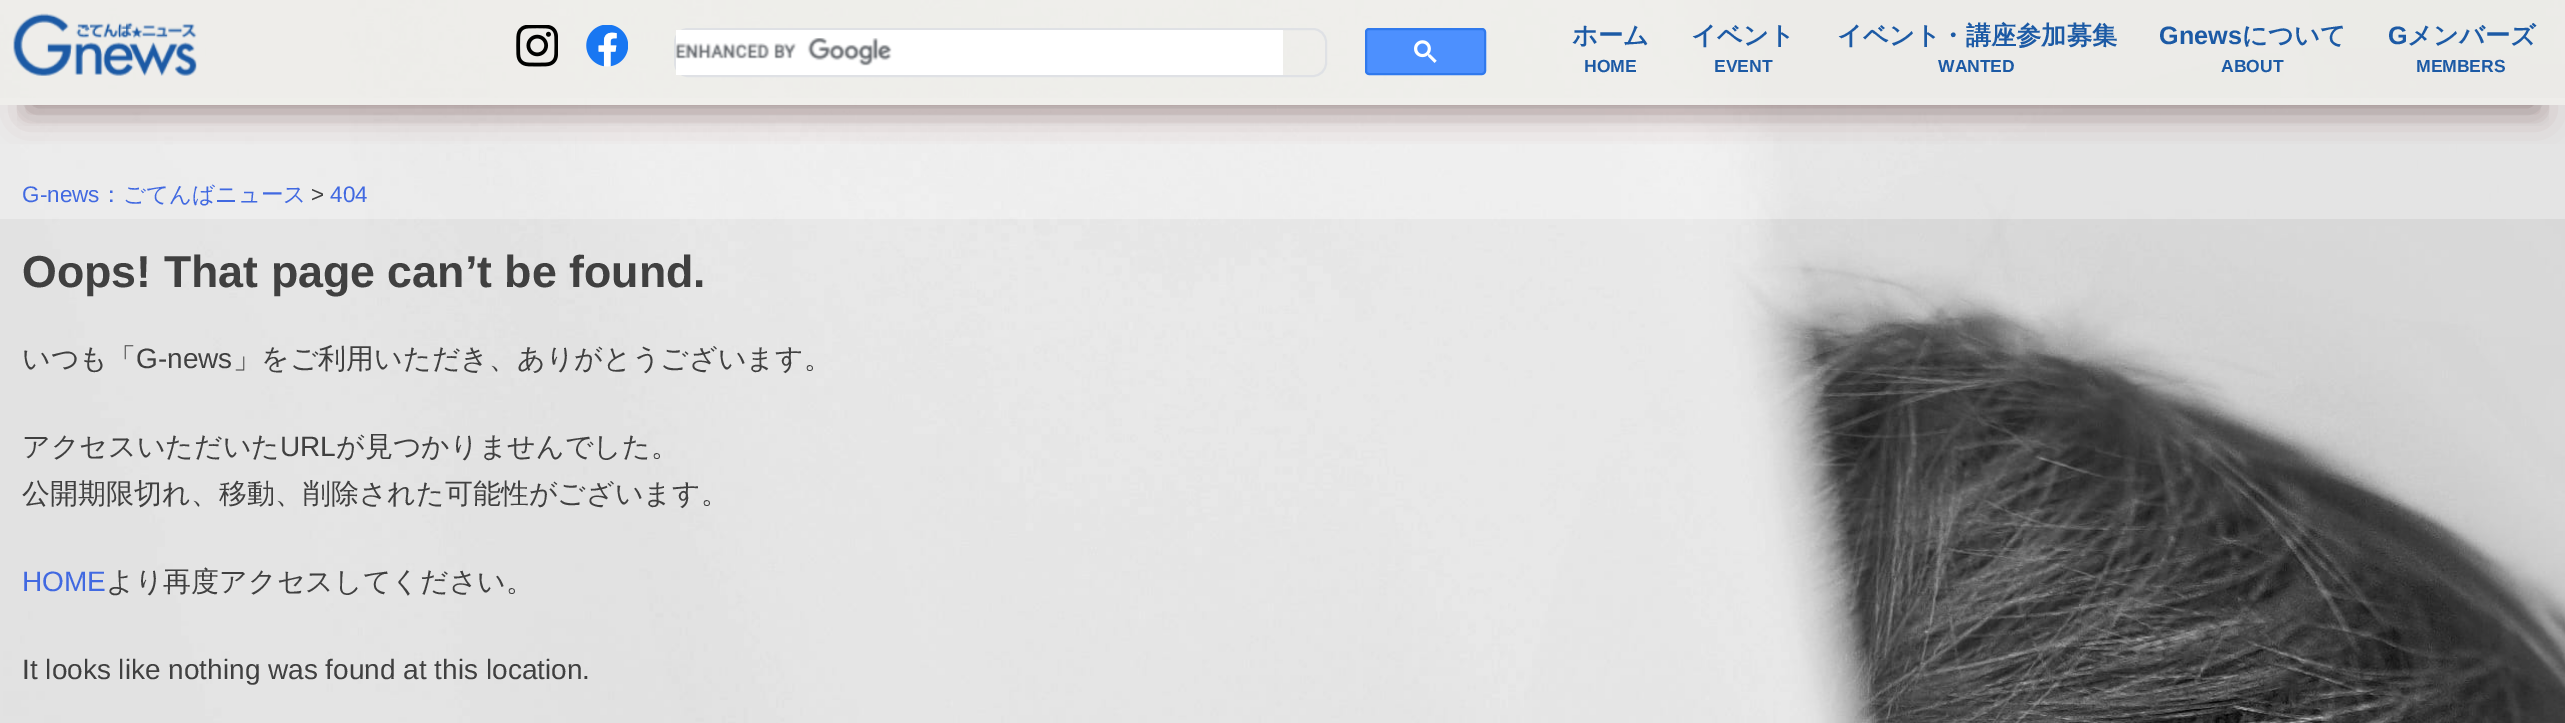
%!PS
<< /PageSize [2565 723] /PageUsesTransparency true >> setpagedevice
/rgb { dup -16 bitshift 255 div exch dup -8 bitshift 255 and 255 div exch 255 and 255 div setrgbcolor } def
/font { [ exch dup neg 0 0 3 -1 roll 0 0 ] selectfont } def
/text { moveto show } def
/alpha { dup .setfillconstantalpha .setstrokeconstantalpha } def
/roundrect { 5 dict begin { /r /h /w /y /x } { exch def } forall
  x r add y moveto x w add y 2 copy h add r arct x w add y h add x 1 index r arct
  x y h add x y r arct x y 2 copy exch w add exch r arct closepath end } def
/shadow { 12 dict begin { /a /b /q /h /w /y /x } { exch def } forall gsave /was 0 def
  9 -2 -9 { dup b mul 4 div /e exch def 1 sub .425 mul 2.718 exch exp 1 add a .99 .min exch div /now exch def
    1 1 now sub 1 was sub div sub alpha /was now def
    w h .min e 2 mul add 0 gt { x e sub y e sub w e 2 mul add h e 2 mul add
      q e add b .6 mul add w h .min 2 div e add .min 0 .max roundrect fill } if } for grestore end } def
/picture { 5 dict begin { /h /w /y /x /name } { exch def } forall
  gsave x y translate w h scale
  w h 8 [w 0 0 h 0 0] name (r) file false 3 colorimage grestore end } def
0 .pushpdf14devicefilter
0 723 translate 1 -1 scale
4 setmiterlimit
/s1 { /WenQuanYiZenHei-Bold 25.25 font 16#1C5AA5 rgb } def
/s2 { /LiberationSans-Bold 17.5 font 16#1C5AA5 rgb } def
/s3 { /LiberationSans-Bold 25.25 font 16#1C5AA5 rgb } def
/s4 { /LiberationSans-Regular 22.5 font 16#4169E1 rgb } def
/s5 { /WenQuanYiZenHei-Medium 22.5 font 16#4169E1 rgb } def
/s6 { /LiberationSans-Regular 22.5 font 16#404040 rgb } def
/s7 { /LiberationSans-Bold 44.75 font 16#404040 rgb } def
/s8 { /WenQuanYiZenHei-Medium 28 font 16#404040 rgb } def
/s9 { /LiberationSans-Regular 28 font 16#404040 rgb } def
/s10 { /LiberationSans-Regular 28 font 16#4169E1 rgb } def
16#FFFFFF rgb
0 0 2565 723 rectfill
(pic1.raw) 0 0 2565 723 picture
0.3 alpha
0 98 2565 121 rectfill
gsave
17 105 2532 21 rectclip
1 alpha
16#000000 rgb
32 63 2502 42 0 14 0.3 shadow
grestore
gsave
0 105 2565 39 rectclip
1 alpha
16#722E2E rgb
21 56 2524 63 0 17.5 0.25 shadow
grestore
0.8 alpha
16#F0EFEB rgb
0 0 2565 105 rectfill
1 alpha
(pic2.raw) 13 13 184 63 picture
(pic3.raw) 516 25 42 42 picture
(pic4.raw) 586 25 42 42 picture
16#DFE1E5 rgb
2 setlinewidth
675 29 651 47 13 roundrect stroke
16#FFFFFF rgb
676 30 607 45 rectfill
(pic5.raw) 676 38 216 28 picture
16#4D90FE rgb
1366 29 119 45 3 roundrect gsave fill grestore
16#3079ED rgb
stroke
(pic6.raw) 1414 40 23 23 picture
s1
(ホーム) 1572 44 text
s2
(HOME) 1584 72 text
s1
(イベント) 1691 44 text
s2
(EVENT) 1714 72 text
s1
(イベント・講座参加募集) 1837 44 text
s2
(WANTED) 1938 72 text
s3
(Gnews) 2159 44 text
s1
(について) 2242 44 text
s2
(ABOUT) 2221 72 text
s3
(G) 2388 44 text
s1
(メンバーズ) 2407 44 text
s2
(MEMBERS) 2416 72 text
s4
(G-news) 22 202 text
s5
(：ごてんばニュース) 100 202 text
s6
(>) 311 202 text
s4
(404) 330 202 text
s7
(Oops! That page can’t be found.) 22 287 text
s8
(いつも「) 22 368 text
s9
(G-news) 136 368 text
s8
(」をご利用いただき、ありがとうございます。) 233 368 text
(アクセスいただいた) 22 456 text
s9
(URL) 280 456 text
s8
(が見つかりませんでした。) 336 456 text
(公開期限切れ、移動、削除された可能性がございます。) 22 503 text
s10
(HOME) 22 591 text
s8
(より再度アクセスしてください。) 106 591 text
s9
(It looks like nothing was found at this location.) 22 679 text
.poppdf14devicefilter showpage
